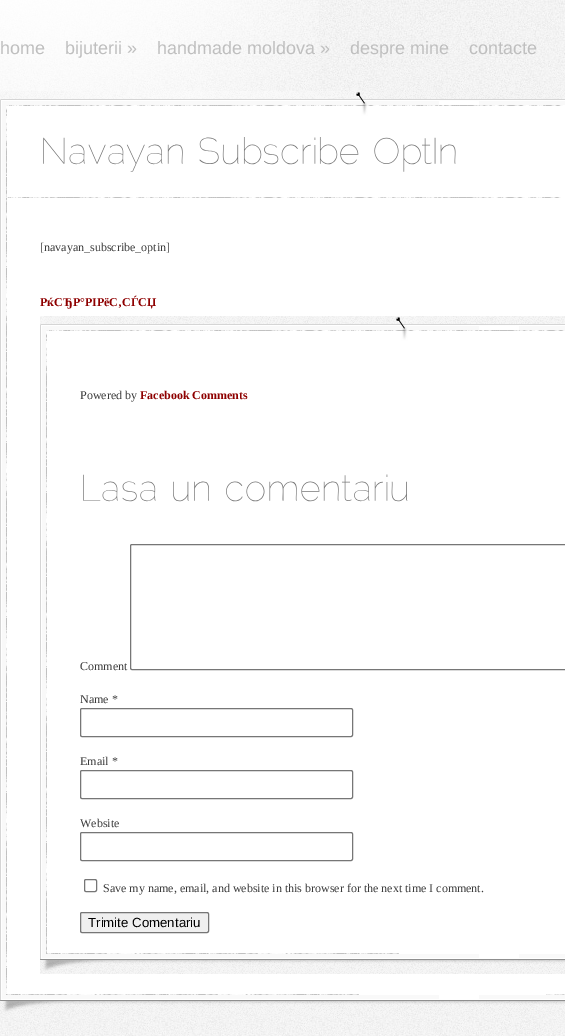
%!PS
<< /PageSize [565 1036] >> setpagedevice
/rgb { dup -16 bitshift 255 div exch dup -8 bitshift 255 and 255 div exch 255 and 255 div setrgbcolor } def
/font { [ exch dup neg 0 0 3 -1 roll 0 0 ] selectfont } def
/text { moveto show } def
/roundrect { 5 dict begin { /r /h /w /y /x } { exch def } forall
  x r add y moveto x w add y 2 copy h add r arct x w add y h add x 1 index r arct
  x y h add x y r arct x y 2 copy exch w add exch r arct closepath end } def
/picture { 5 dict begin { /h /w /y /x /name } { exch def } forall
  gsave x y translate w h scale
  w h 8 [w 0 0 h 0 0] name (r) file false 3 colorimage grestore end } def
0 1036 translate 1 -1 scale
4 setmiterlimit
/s1 { /LiberationSans-Regular 18 font 16#BFBFBF rgb } def
/s2 { /LiberationSerif-Regular 12 font 16#3B3B3B rgb } def
/s3 { /LiberationSerif-Bold 12 font 16#8E0000 rgb } def
/s4 { /LiberationSans-Regular 13.25 font 16#000000 rgb } def
16#FFFFFF rgb
0 0 565 1036 rectfill
(pic1.raw) 0 0 565 1036 picture
(pic2.raw) 0 0 319 91 picture
s1
(home) 0 54 text
(bijuterii ») 65 54 text
(handmade moldova ») 157 54 text
(despre mine) 350 54 text
(contacte) 469 54 text
(pic3.raw) 0 116 565 878 picture
(pic4.raw) 0 91 565 25 picture
(pic5.raw) 43 137 140 35 picture
(pic6.raw) 199 137 160 28 picture
(pic7.raw) 374 137 82 35 picture
(pic8.raw) 6 197 555 1 picture
s2
([navayan_subscribe_optin]) 40 251 text
s3
(РќСЂР°РІРёС‚СЃСЏ) 40 306 text
(pic9.raw) 40 341 7 612 picture
(pic10.raw) 40 316 525 25 picture
s2
(Powered by) 80 399 text
s3
(Facebook Comments) 140 399 text
(pic11.raw) 83 474 73 28 picture
(pic12.raw) 173 481 36 21 picture
(pic13.raw) 226 474 182 28 picture
s2
(Comment) 80 670 text
16#767676 rgb
130.5 544.5 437 125 1.5 roundrect stroke
s2
(Name *) 80 703 text
16#767676 rgb
80.5 708.5 272 28 1.5 roundrect stroke
s2
(Email *) 80 765 text
16#767676 rgb
80.5 770.5 272 28 1.5 roundrect stroke
s2
(Website) 80 827 text
16#767676 rgb
80.5 832.5 272 28 1.5 roundrect stroke
84.5 879.5 12 12 1.5 roundrect stroke
s2
(Save my name, email, and website in this browser for the next time I comment.) 103 892 text
16#EFEFEF rgb
80.5 912.5 128 20 1.5 roundrect gsave fill grestore
16#767676 rgb
stroke
s4
(Trimite Comentariu) 88 927 text
(pic14.raw) 40 953 525 21 picture
(pic15.raw) 0 994 565 21 picture
showpage
